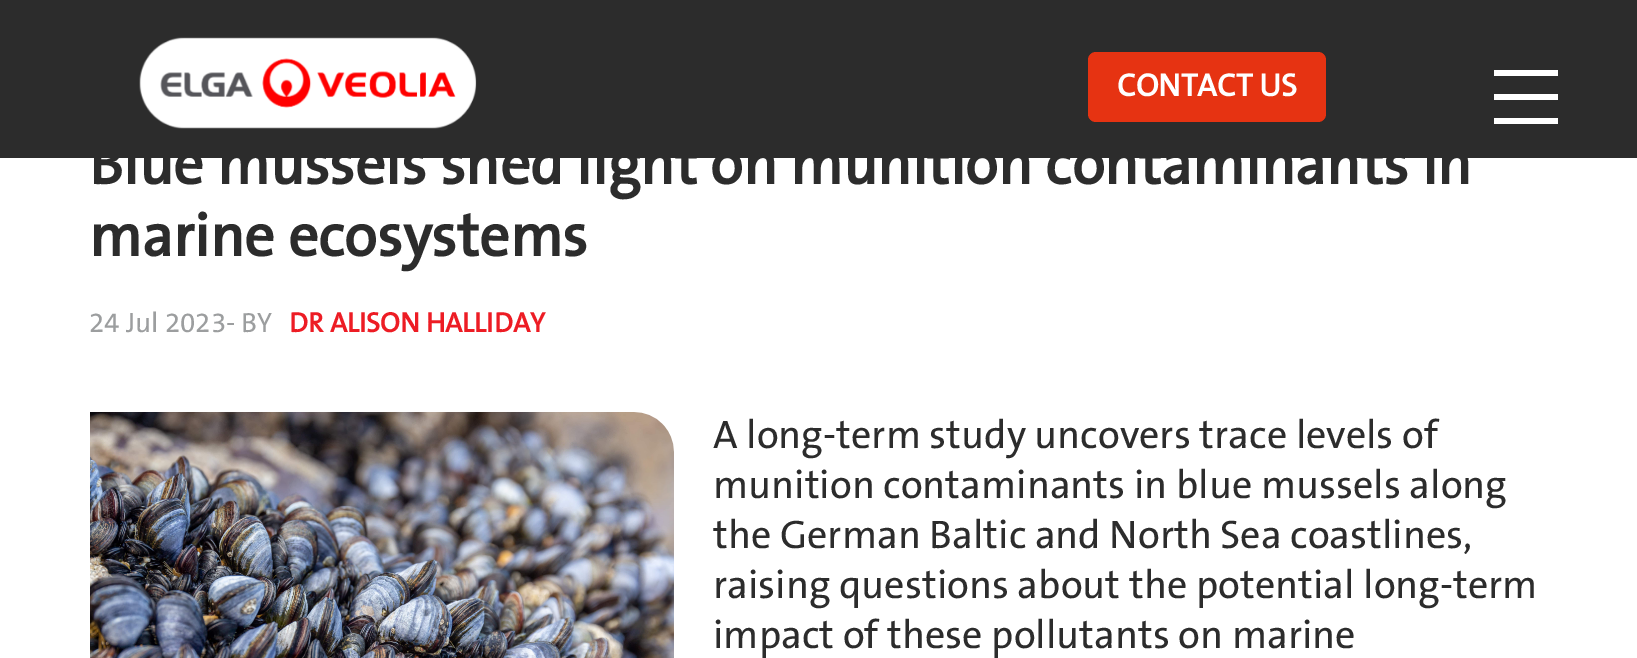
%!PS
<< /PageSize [1637 658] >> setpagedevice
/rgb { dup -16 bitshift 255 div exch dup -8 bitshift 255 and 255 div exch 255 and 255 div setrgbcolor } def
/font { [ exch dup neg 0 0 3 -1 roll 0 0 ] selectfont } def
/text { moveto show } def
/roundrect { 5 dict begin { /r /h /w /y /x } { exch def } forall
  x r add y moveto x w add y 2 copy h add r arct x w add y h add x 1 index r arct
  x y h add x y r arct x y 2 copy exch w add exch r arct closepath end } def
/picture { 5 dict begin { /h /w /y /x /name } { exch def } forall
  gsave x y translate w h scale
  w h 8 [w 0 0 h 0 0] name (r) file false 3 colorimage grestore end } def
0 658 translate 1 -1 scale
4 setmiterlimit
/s1 { /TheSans-Bold 32 font 16#FFFFFF rgb } def
/s2 { /TheSans-Bold 60 font 16#2C2C2C rgb } def
/s3 { /TheSans-Regular 28 font 16#9C9E9F rgb } def
/s4 { /TheSans-Bold 28 font 16#ED1C24 rgb } def
/s5 { /TheSans-Regular 40 font 16#2C2C2C rgb } def
16#FFFFFF rgb
0 0 1637 658 rectfill
16#2C2C2C rgb
0 0 1637 158 rectfill
(pic1.raw) 139 37 338 92 picture
16#E63312 rgb
1088 52 238 70 8 roundrect fill
s1
(CONTACT US) 1117 96 text
1494 118 64 6 rectfill
1494 94 64 6 rectfill
1494 70 64 6 rectfill
s2
(Blue mussels shed light on munition contaminants in) 89 184 text
(marine ecosystems) 89 256 text
s3
(24 Jul 2023- BY) 89 332 text
s4
(DR ALISON HALLIDAY) 289 332 text
(pic2.raw) 90 412 584 246 picture
s5
(A long-term study uncovers trace levels of) 713 448 text
(munition contaminants in blue mussels along) 713 498 text
(the German Baltic and North Sea coastlines,) 713 548 text
(raising questions about the potential long-term) 713 598 text
(impact of these pollutants on marine) 713 648 text
showpage
